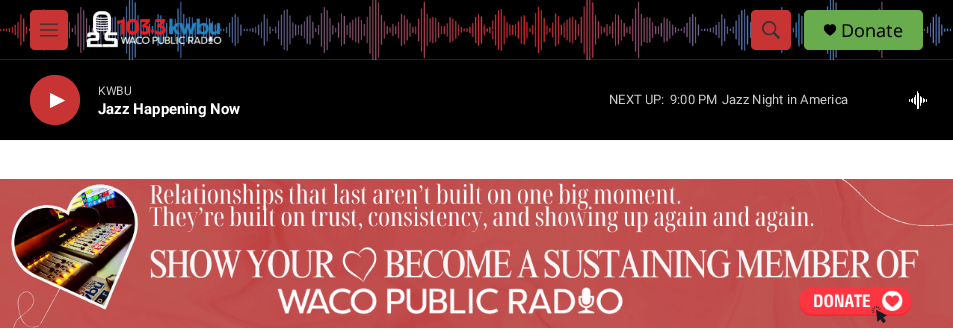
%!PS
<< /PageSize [953 332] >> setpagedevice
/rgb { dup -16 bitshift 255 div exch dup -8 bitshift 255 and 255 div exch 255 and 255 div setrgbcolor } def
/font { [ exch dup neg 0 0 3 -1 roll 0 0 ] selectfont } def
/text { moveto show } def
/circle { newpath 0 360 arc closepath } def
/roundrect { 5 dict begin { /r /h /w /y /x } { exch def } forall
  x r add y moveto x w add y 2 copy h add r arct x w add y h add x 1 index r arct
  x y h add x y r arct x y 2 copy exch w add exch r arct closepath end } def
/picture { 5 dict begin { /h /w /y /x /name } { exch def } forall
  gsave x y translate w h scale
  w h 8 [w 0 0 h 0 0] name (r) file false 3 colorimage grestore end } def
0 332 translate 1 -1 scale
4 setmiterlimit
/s1 { /NotoSans-Regular 18 font 16#000000 rgb } def
/s2 { /Roboto-Regular 12 font 16#CCCCCC rgb } def
/s3 { /Roboto-Bold 15 font 16#FFFFFF rgb } def
/s4 { /Roboto-Regular 13 font 16#CCCCCC rgb } def
16#FFFFFF rgb
0 0 953 332 rectfill
16#F5F5F5 rgb
0 140 953 1 rectfill
(pic1.raw) 0 0 953 60 picture
16#C83333 rgb
30 10 38 40 5 roundrect fill
(pic2.raw) 40 23 18 14 picture
(pic3.raw) 86 10 136 38 picture
751 10 40 40 5 roundrect fill
(pic4.raw) 762 21 18 18 picture
16#68AC4D rgb
804 10 119 40 5 roundrect fill
16#000000 rgb
830 26 moveto 828 21 817.5 28 830 35.5 curveto 842.5 28 832 21 830 26 curveto closepath fill
s1
(Donate) 841 37 text
0 60 953 80 rectfill
16#C83333 rgb
55 100 25 circle fill
16#FFFFFF rgb
50 93 moveto 65 100.5 lineto 50 108 lineto closepath fill
s2
(KWBU) 98 95 text
s3
(Jazz Happening Now) 98 114 text
s4
(NEXT UP:) 609 104 text
(9:00 PM) 670 104 text
(Jazz Night in America) 722 104 text
(pic5.raw) 909 91 18 18 picture
(pic6.raw) 0 179 953 149 picture
showpage
